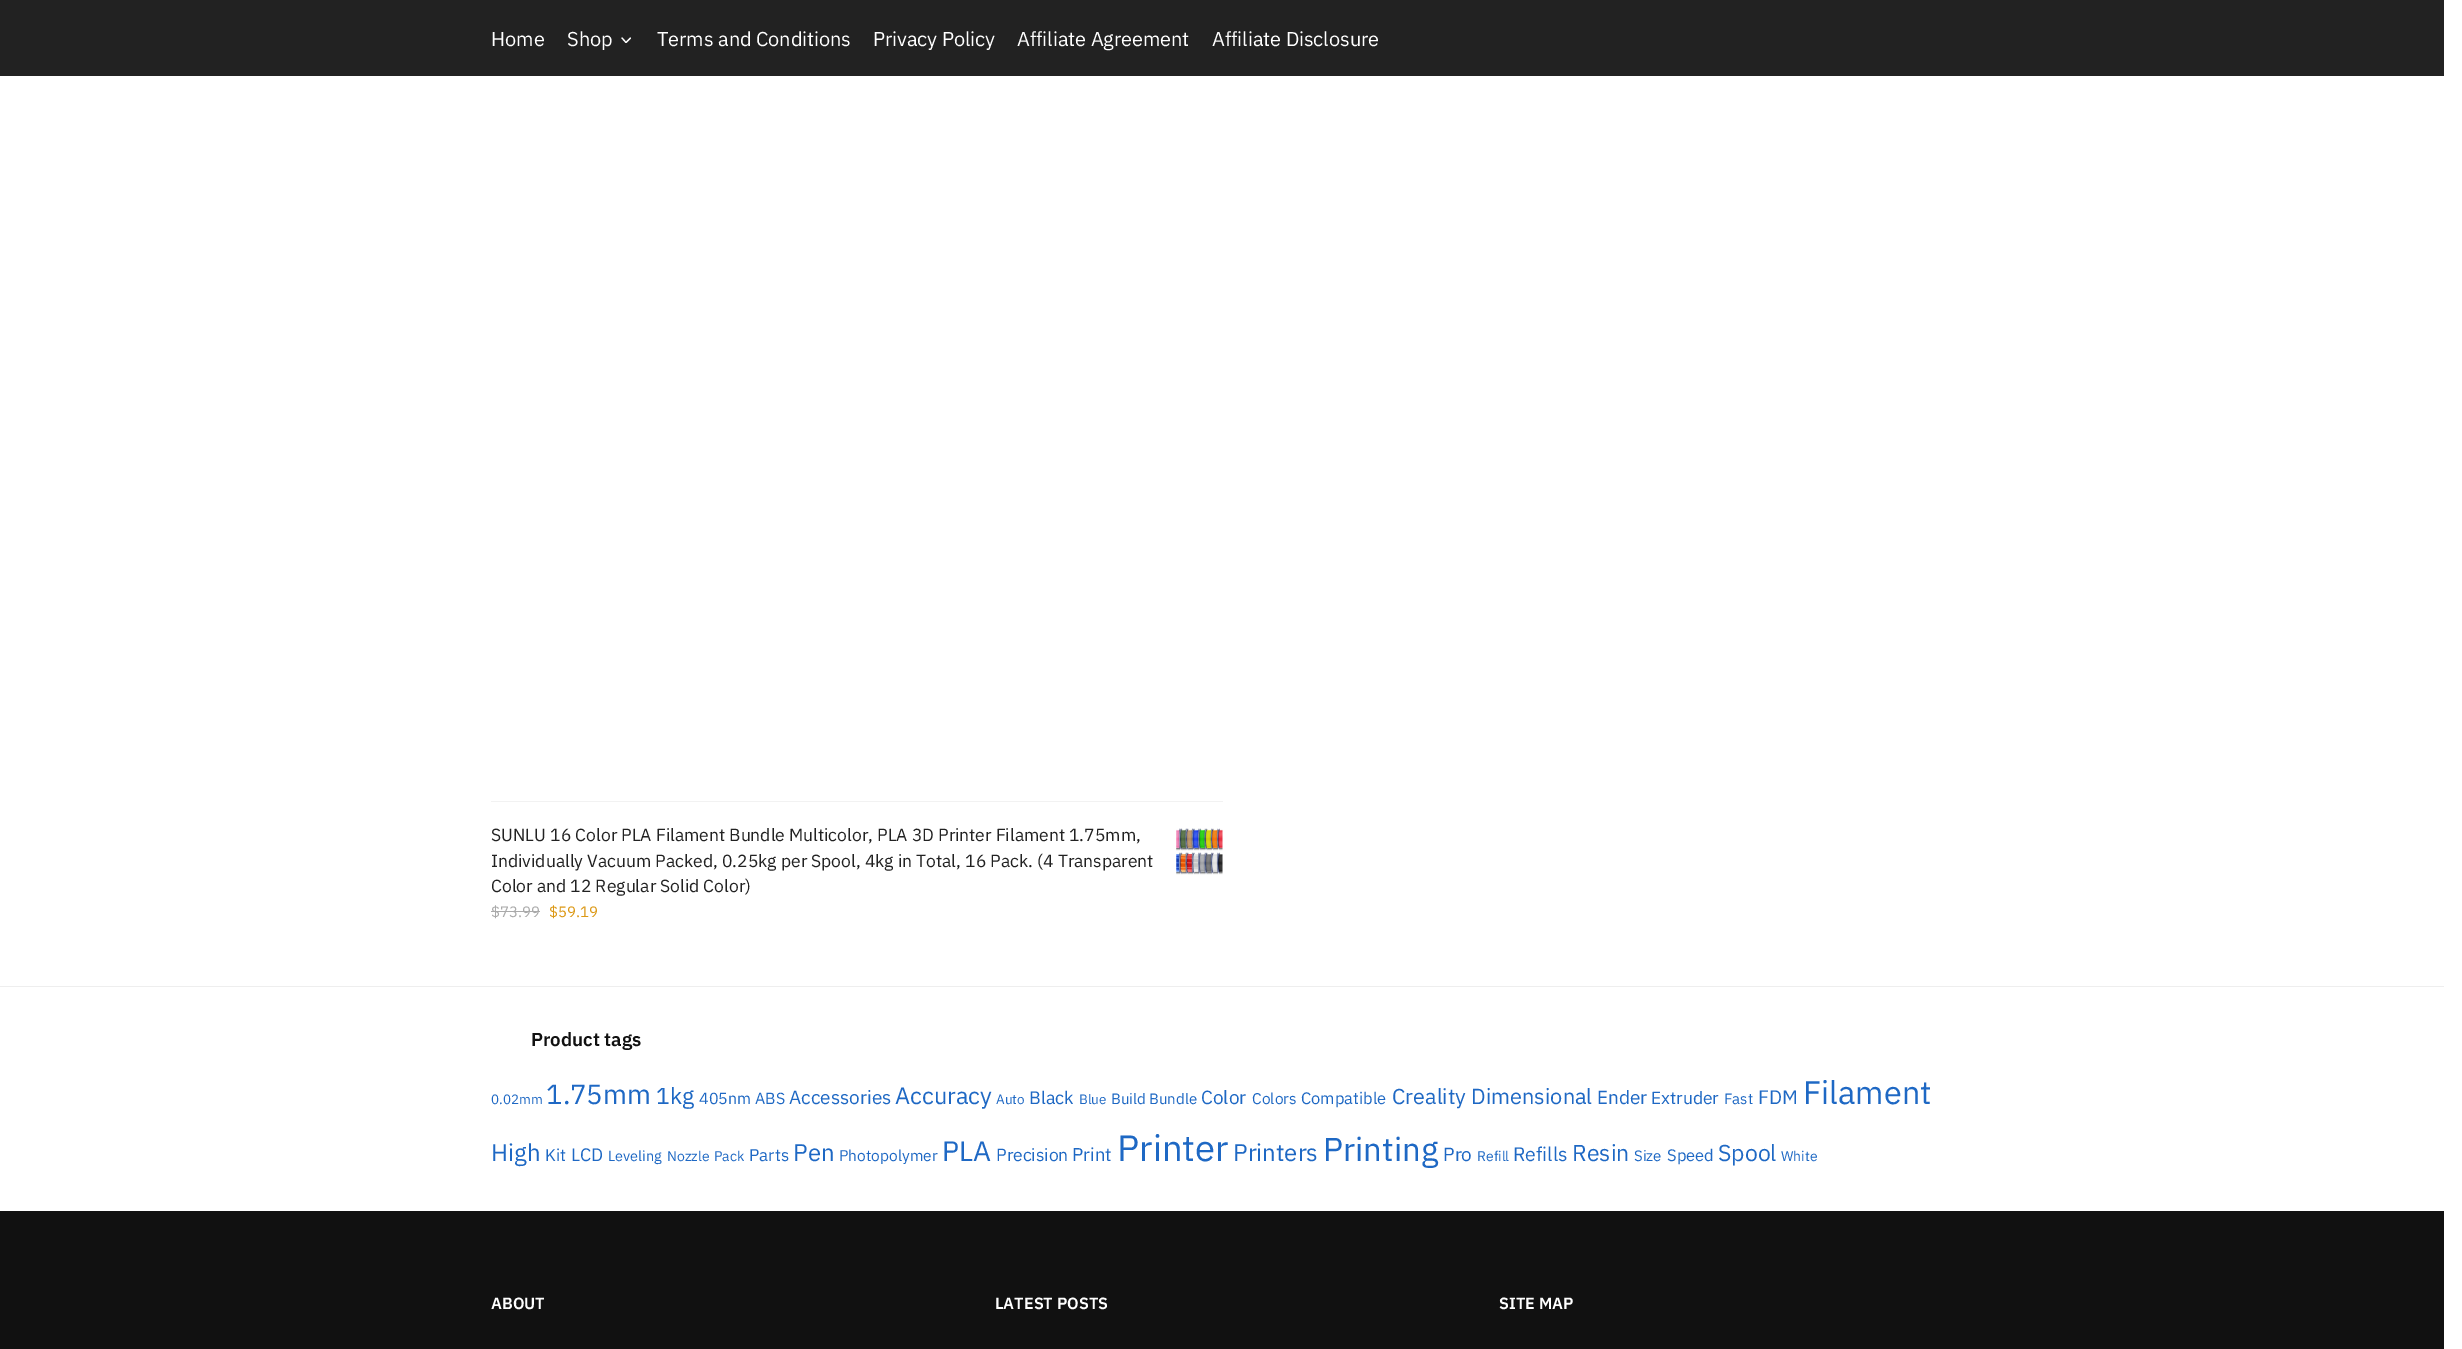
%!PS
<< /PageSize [2462 1349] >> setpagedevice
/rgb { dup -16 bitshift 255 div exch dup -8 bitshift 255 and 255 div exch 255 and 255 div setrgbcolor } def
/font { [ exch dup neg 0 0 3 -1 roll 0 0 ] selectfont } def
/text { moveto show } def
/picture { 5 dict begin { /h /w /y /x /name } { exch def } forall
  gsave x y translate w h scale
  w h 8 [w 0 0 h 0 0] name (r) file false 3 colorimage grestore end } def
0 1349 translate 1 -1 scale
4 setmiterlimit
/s1 { /IBMPlexSans-Regular 17.5 font 16#222222 rgb } def
/s2 { /IBMPlexSans-Regular 15 font 16#AAAAAA rgb } def
/s3 { /IBMPlexSans-Regular 15 font 16#DC9814 rgb } def
/s4 { /IBMPlexSans-SemiBold 18.75 font 16#111111 rgb } def
/s5 { /IBMPlexSans-Regular 13.5 font 16#1E68C4 rgb } def
/s6 { /IBMPlexSans-Regular 27.5 font 16#1E68C4 rgb } def
/s7 { /IBMPlexSans-Regular 23 font 16#1E68C4 rgb } def
/s8 { /IBMPlexSans-Regular 16 font 16#1E68C4 rgb } def
/s9 { /IBMPlexSans-Regular 19 font 16#1E68C4 rgb } def
/s10 { /IBMPlexSans-Regular 23.5 font 16#1E68C4 rgb } def
/s11 { /IBMPlexSans-Regular 18 font 16#1E68C4 rgb } def
/s12 { /IBMPlexSans-Regular 15 font 16#1E68C4 rgb } def
/s13 { /IBMPlexSans-Regular 15.5 font 16#1E68C4 rgb } def
/s14 { /IBMPlexSans-Regular 16.5 font 16#1E68C4 rgb } def
/s15 { /IBMPlexSans-Regular 21.5 font 16#1E68C4 rgb } def
/s16 { /IBMPlexSans-Regular 21.75 font 16#1E68C4 rgb } def
/s17 { /IBMPlexSans-Regular 17.5 font 16#1E68C4 rgb } def
/s18 { /IBMPlexSans-Regular 19.5 font 16#1E68C4 rgb } def
/s19 { /IBMPlexSans-Regular 32.5 font 16#1E68C4 rgb } def
/s20 { /IBMPlexSans-Regular 24 font 16#1E68C4 rgb } def
/s21 { /IBMPlexSans-Regular 17 font 16#1E68C4 rgb } def
/s22 { /IBMPlexSans-Regular 14.5 font 16#1E68C4 rgb } def
/s23 { /IBMPlexSans-Regular 14 font 16#1E68C4 rgb } def
/s24 { /IBMPlexSans-Regular 28 font 16#1E68C4 rgb } def
/s25 { /IBMPlexSans-Regular 18.5 font 16#1E68C4 rgb } def
/s26 { /IBMPlexSans-Regular 36.5 font 16#1E68C4 rgb } def
/s27 { /IBMPlexSans-Regular 33 font 16#1E68C4 rgb } def
/s28 { /IBMPlexSans-SemiBold 16.25 font 16#FFFFFF rgb } def
16#FFFFFF rgb
0 0 2462 1349 rectfill
16#222222 rgb
0 0 2444 76 rectfill
/IBMPlexSans-Regular 20 font
16#FFFFFF rgb
491 46 moveto -0.1 0 (Home) ashow
567 46 moveto -0.1 0 (Shop) ashow
1.2 setlinewidth
1 setlinecap
1 setlinejoin
630.5 38 moveto 626 42.5 lineto 622 38 lineto stroke
657 46 moveto -0.1 0 (Terms and Conditions) ashow
873 46 moveto -0.1 0 (Privacy Policy) ashow
1017 46 moveto -0.1 0 (Affiliate Agreement) ashow
1212 46 moveto -0.1 0 (Affiliate Disclosure) ashow
16#F2F2F2 rgb
491 801 732 1 rectfill
s1
(SUNLU 16 Color PLA Filament Bundle Multicolor, PLA 3D Printer Filament 1.75mm,) 491 841 text
(pic1.raw) 1176 828 47 47 picture
(Individually Vacuum Packed, 0.25kg per Spool, 4kg in Total, 16 Pack. \(4 Transparent) 491 867 text
(Color and 12 Regular Solid Color\)) 491 892 text
s2
($73.99) 491 917 text
491 911 49 1 rectfill
s3
($59.19) 549 917 text
16#EEEEEE rgb
0 986 2444 1 rectfill
s4
(Product tags) 531 1046 text
s5
(0.02mm) 491 1104 text
s6
(1.75mm) 546 1104 text
s7
(1kg) 656 1104 text
s8
(405nm) 699 1104 text
(ABS) 755 1104 text
s9
(Accessories) 789 1104 text
s10
(Accuracy) 895 1104 text
s5
(Auto) 996 1104 text
s11
(Black) 1029 1104 text
s5
(Blue) 1079 1104 text
s12
(Build) 1111 1104 text
(Bundle) 1149 1104 text
s9
(Color) 1201 1104 text
s13
(Colors) 1252 1104 text
s14
(Compatible) 1301 1104 text
s15
(Creality) 1392 1104 text
s16
(Dimensional) 1471 1104 text
s9
(Ender) 1597 1104 text
s17
(Extruder) 1651 1104 text
s12
(Fast) 1724 1104 text
s18
(FDM) 1758 1104 text
s19
(Filament) 1803 1104 text
s20
(High) 491 1161 text
s21
(Kit) 545 1161 text
s11
(LCD) 571 1161 text
s22
(Leveling) 608 1161 text
s23
(Nozzle) 667 1161 text
(Pack) 714 1161 text
s21
(Parts) 749 1161 text
s20
(Pen) 793 1161 text
s13
(Photopolymer) 839 1161 text
s24
(PLA) 942 1161 text
s17
(Precision) 996 1161 text
s25
(Print) 1072 1161 text
s26
(Printer) 1117 1161 text
s20
(Printers) 1233 1161 text
s27
(Printing) 1323 1161 text
s9
(Pro) 1443 1161 text
s23
(Refill) 1477 1161 text
s18
(Refills) 1513 1161 text
s7
(Resin) 1572 1161 text
s12
(Size) 1634 1161 text
s14
(Speed) 1667 1161 text
s7
(Spool) 1718 1161 text
s23
(White) 1781 1161 text
16#111111 rgb
0 1211 2444 138 rectfill
s28
(ABOUT) 491 1309 text
(LATEST POSTS) 995 1309 text
(SITE MAP) 1499 1309 text
showpage
